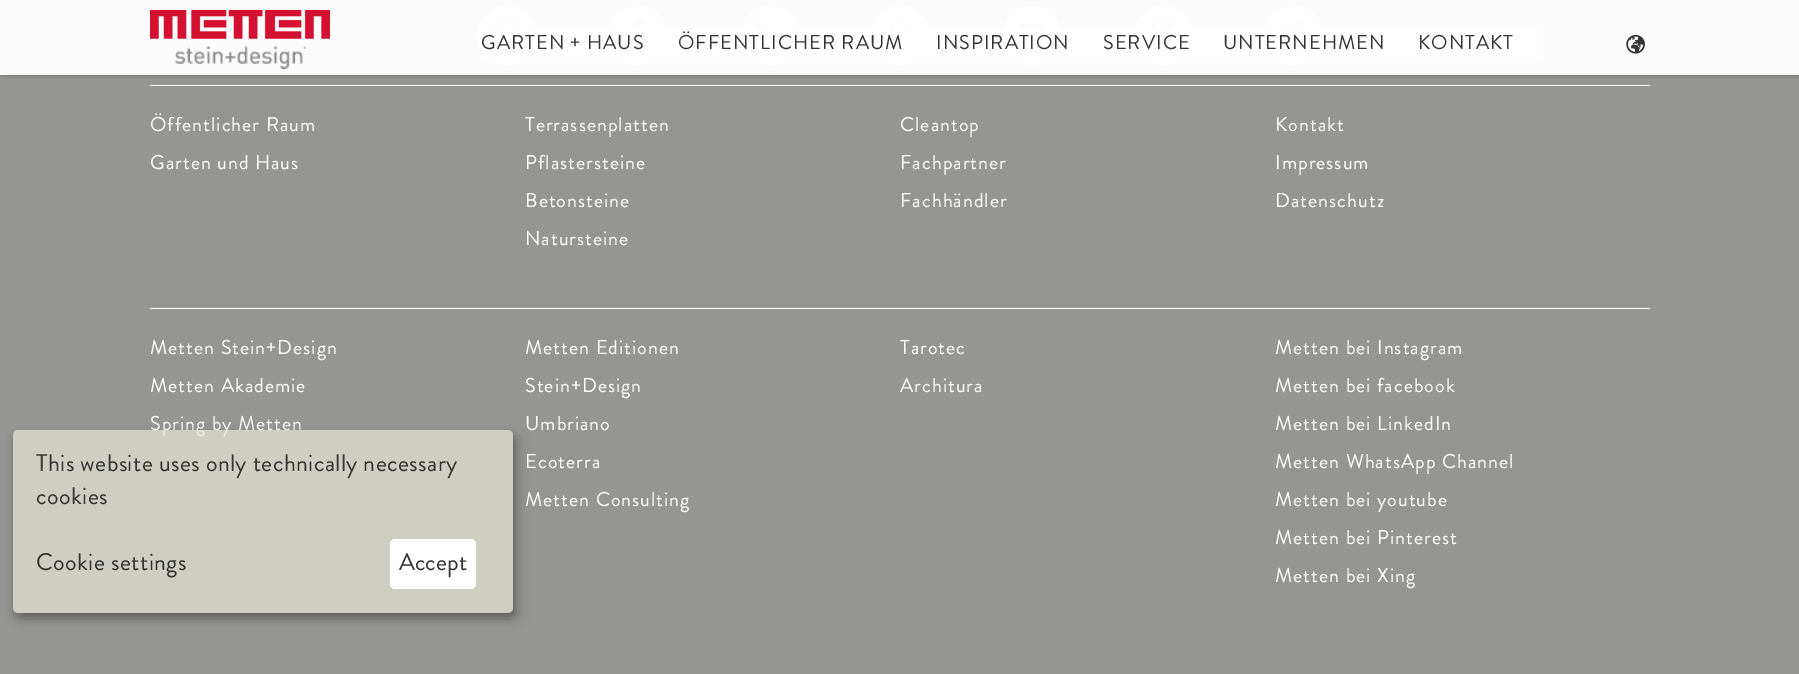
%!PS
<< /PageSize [1799 674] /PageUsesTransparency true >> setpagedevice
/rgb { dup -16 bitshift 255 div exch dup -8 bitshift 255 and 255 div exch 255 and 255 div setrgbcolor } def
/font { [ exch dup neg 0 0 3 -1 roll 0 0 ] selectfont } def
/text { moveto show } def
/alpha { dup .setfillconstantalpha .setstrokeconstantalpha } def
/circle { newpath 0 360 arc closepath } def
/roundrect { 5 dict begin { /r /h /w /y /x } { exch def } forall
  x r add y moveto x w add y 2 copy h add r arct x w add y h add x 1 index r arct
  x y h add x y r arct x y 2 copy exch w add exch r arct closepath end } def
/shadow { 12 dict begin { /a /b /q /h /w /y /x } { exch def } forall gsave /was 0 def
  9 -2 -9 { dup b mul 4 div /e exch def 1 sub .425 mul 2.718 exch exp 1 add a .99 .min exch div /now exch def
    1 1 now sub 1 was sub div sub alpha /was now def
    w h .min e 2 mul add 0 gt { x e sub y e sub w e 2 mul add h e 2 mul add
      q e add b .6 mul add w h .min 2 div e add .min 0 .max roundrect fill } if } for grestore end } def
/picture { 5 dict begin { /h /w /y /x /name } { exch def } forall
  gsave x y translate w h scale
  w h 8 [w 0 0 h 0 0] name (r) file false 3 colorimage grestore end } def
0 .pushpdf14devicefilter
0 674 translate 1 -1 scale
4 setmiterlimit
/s1 { /BrandonGrotesque-Regular 24 font 16#333333 rgb } def
16#959593 rgb
0 0 1799 674 rectfill
16#FCFCFC rgb
0 0 1799 75 rectfill
16#FFFFFF rgb
478 6 58 59 29 roundrect fill
(pic3.raw) 493 21 27 27 picture
638.5 35.5 29.5 circle fill
(pic4.raw) 630 19 15 29 picture
769.5 35.5 29.5 circle fill
(pic5.raw) 756 22 26 25 picture
900.5 35.5 29.5 circle fill
(pic6.raw) 887 21 27 27 picture
1003 6 58 59 29 roundrect fill
(pic7.raw) 1016 23 31 23 picture
1163.5 35.5 29.5 circle fill
(pic8.raw) 1151 19 22 29 picture
1294.5 35.5 29.5 circle fill
(pic9.raw) 1281 19 24 29 picture
gsave
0 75 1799 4 rectclip
16#000000 rgb
1 1 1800 75 0 2.5 0.2 shadow
grestore
(pic1.raw) 150 10 180 59 picture
0.97 alpha
481 29 1062 34 rectfill
/BrandonGrotesque-Regular 20 font
1 alpha
16#333333 rgb
481 49 moveto 1 0 (GARTEN + HAUS) ashow
678 49 moveto 1 0 (ÖFFENTLICHER RAUM) ashow
936 49 moveto 1 0 (INSPIRATION) ashow
1103 49 moveto 1 0 (SERVICE) ashow
1223 49 moveto 1 0 (UNTERNEHMEN) ashow
1418 49 moveto 1 0 (KONTAKT) ashow
(pic2.raw) 1626 34 19 20 picture
16#FFFFFF rgb
150 85 1500 1 rectfill
150 131 moveto 1 0 (Öffentlicher Raum) ashow
150 169 moveto 1 0 (Garten und Haus) ashow
525 131 moveto 1 0 (Terrassenplatten) ashow
525 169 moveto 1 0 (Pflastersteine) ashow
525 207 moveto 1 0 (Betonsteine) ashow
525 245 moveto 1 0 (Natursteine) ashow
900 131 moveto 1 0 (Cleantop) ashow
900 169 moveto 1 0 (Fachpartner) ashow
900 207 moveto 1 0 (Fachhändler) ashow
1275 131 moveto 1 0 (Kontakt) ashow
1275 169 moveto 1 0 (Impressum) ashow
1275 207 moveto 1 0 (Datenschutz) ashow
150 308 1500 1 rectfill
150 354 moveto 1 0 (Metten Stein+Design) ashow
150 392 moveto 1 0 (Metten Akademie) ashow
150 430 moveto 1 0 (Spring by Metten) ashow
525 354 moveto 1 0 (Metten Editionen) ashow
525 392 moveto 1 0 (Stein+Design) ashow
525 430 moveto 1 0 (Umbriano) ashow
525 468 moveto 1 0 (Ecoterra) ashow
525 506 moveto 1 0 (Metten Consulting) ashow
900 354 moveto 1 0 (Tarotec) ashow
900 392 moveto 1 0 (Architura) ashow
1275 354 moveto 1 0 (Metten bei Instagram) ashow
1275 392 moveto 1 0 (Metten bei facebook) ashow
1275 430 moveto 1 0 (Metten bei LinkedIn) ashow
1275 468 moveto 1 0 (Metten WhatsApp Channel) ashow
1275 506 moveto 1 0 (Metten bei youtube) ashow
1275 544 moveto 1 0 (Metten bei Pinterest) ashow
1275 582 moveto 1 0 (Metten bei Xing) ashow
gsave
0 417 moveto 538 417 lineto 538 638 lineto 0 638 lineto closepath 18 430 moveto 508 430 lineto 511 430 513 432 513 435 curveto 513 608 lineto 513 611 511 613 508 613 curveto 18 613 lineto 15 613 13 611 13 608 curveto 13 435 lineto 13 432 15 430 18 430 curveto closepath eoclip newpath
16#000000 rgb
19 436 500 183 5 6 0.19 shadow
grestore
gsave
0 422 moveto 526 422 lineto 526 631 lineto 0 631 lineto closepath 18 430 moveto 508 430 lineto 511 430 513 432 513 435 curveto 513 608 lineto 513 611 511 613 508 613 curveto 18 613 lineto 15 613 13 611 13 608 curveto 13 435 lineto 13 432 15 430 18 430 curveto closepath eoclip newpath
16#000000 rgb
13 435 500 183 5 4 0.2 shadow
grestore
0.7 alpha
16#E6E6D7 rgb
13 430 500 183 5 roundrect fill
/BrandonGrotesque-Regular 24 font
1 alpha
16#333333 rgb
36 471 moveto 0.4 0 (This website uses only technically necessary) ashow
36 504 moveto 0.4 0 (cookies) ashow
36 570 moveto 0.4 0 (Cookie settings) ashow
16#FFFFFF rgb
390 539 86 50 5 roundrect fill
s1
(Accept) 399 570 text
.poppdf14devicefilter showpage
